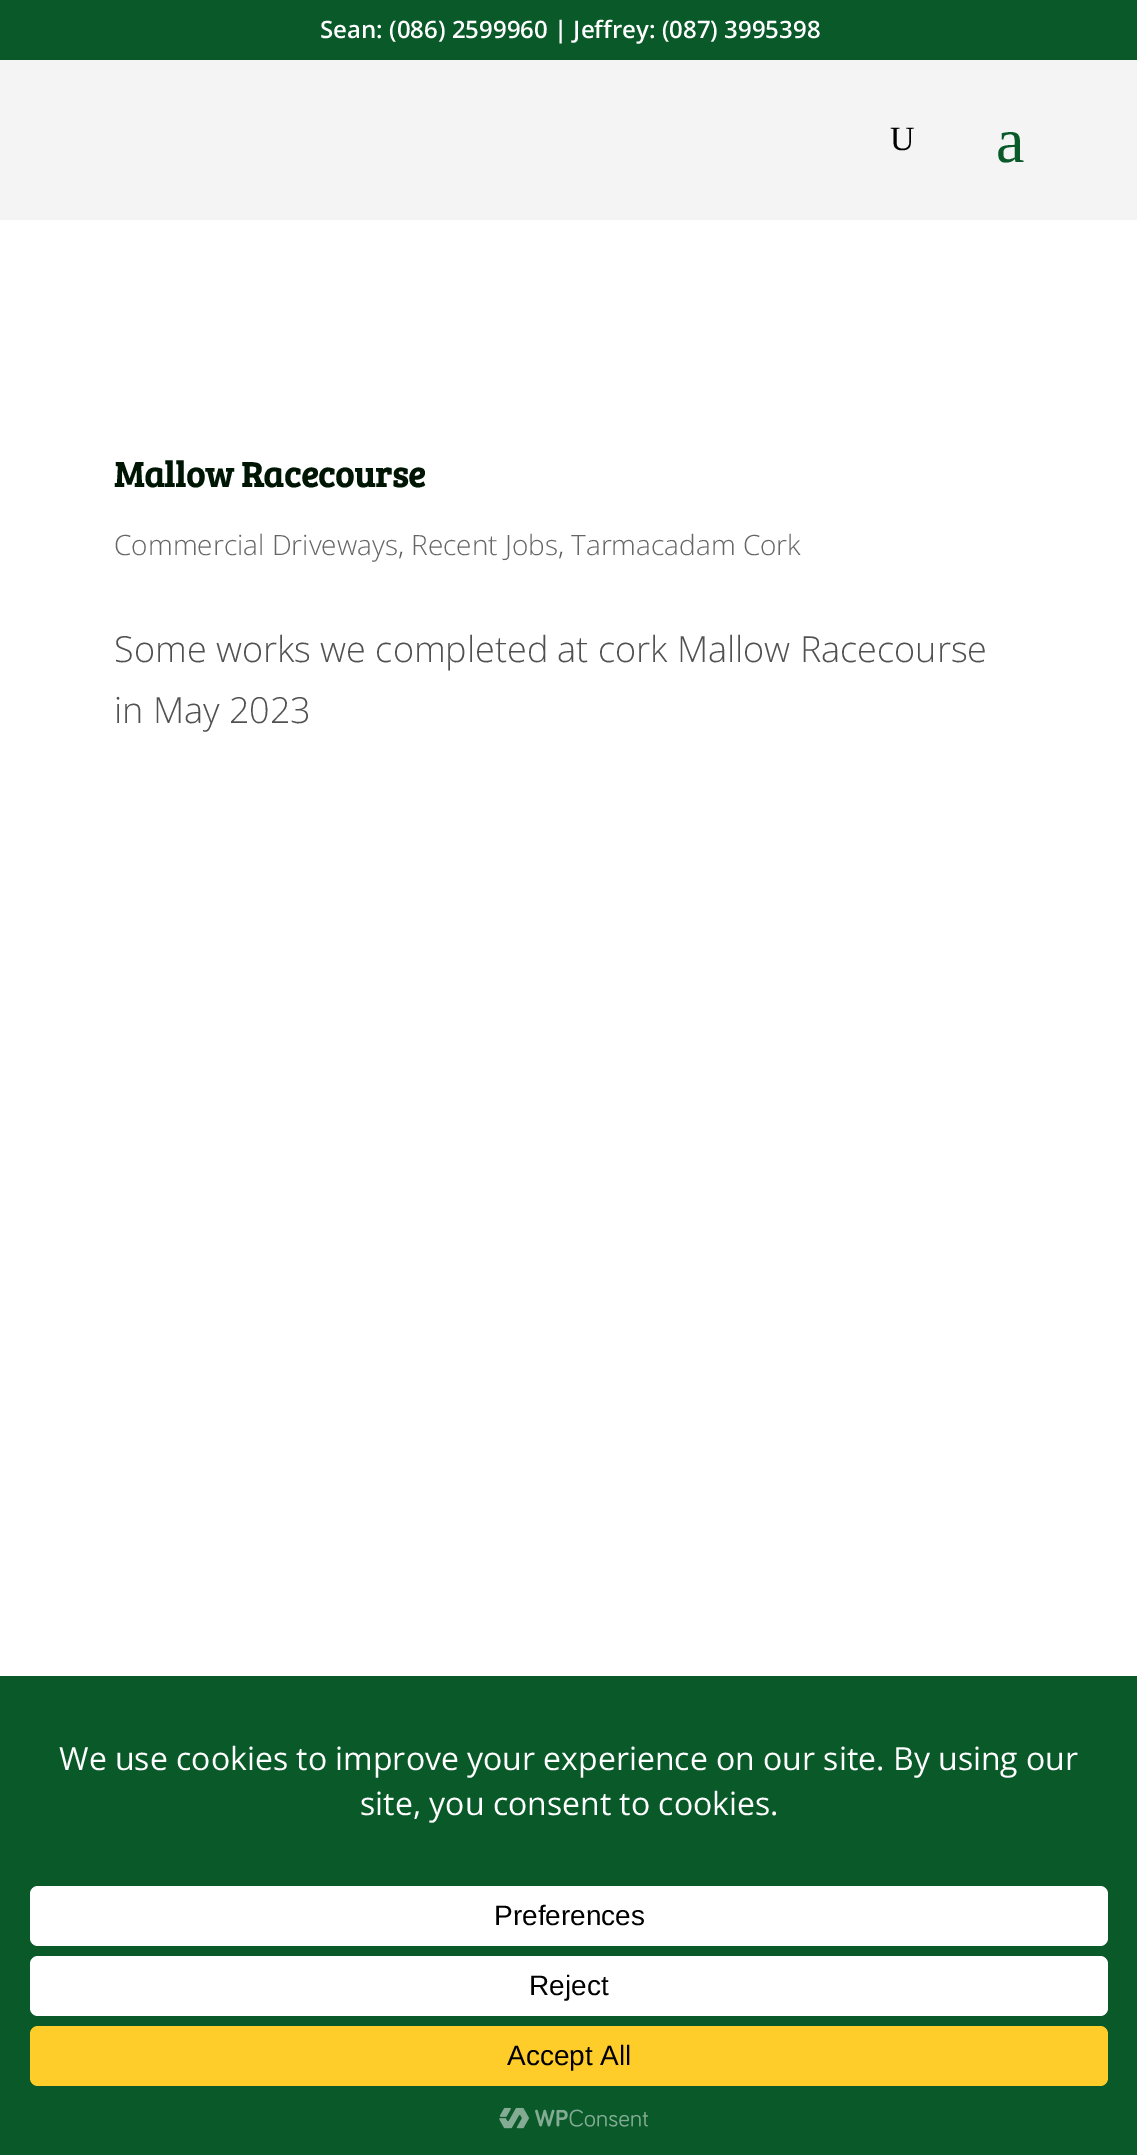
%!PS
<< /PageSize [1137 2155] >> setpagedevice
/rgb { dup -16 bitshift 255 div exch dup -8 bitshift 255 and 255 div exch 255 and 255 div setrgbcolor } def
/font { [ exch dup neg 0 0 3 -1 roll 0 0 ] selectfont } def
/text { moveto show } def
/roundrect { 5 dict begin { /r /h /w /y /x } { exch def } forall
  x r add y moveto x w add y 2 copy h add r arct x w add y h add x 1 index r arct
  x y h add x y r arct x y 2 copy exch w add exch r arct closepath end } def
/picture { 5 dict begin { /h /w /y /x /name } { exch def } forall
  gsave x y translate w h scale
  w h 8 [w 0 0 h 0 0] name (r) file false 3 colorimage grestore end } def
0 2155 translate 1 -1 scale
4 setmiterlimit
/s1 { /OpenSans-SemiBold 24 font 16#FFFFFF rgb } def
/s2 { /LiberationSerif-Regular 34 font 16#000000 rgb } def
/s3 { /LiberationSerif-Regular 64 font 16#095929 rgb } def
/s4 { /BreeSerif-Bold 36 font 16#001604 rgb } def
/s5 { /OpenSans-Light 28 font 16#666666 rgb } def
/s6 { /OpenSans-Light 28 font 16#515151 rgb } def
/s7 { /OpenSans-Light 36 font 16#515151 rgb } def
/s8 { /OpenSans-Regular 32 font 16#FFFFFF rgb } def
/s9 { /LiberationSans-Regular 28 font 16#000000 rgb } def
16#FFFFFF rgb
0 0 1137 2155 rectfill
16#095929 rgb
0 0 1137 60 rectfill
s1
(Sean: \(086\) 2599960 | Jeffrey: \(087\) 3995398) 320 38 text
16#F4F4F4 rgb
0 60 1137 160 rectfill
s2
(U) 890 150 text
s3
(a) 996 162 text
s4
(Mallow Racecourse) 114 487 text
s5
(Commercial Driveways) 114 555 text
s6
(,) 398 555 text
s5
(Recent Jobs) 411 555 text
s6
(,) 558 555 text
s5
(Tarmacadam Cork) 571 555 text
s7
(Some works we completed at cork Mallow Racecourse) 114 662 text
(in May 2023) 114 723 text
16#095929 rgb
0 1676 1137 479 rectfill
s8
(We use cookies to improve your experience on our site. By using our) 59 1770 text
(site, you consent to cookies.) 360 1815 text
30 1886 1078 60 8 roundrect fill
s9
(Preferences) 494 1925 text
16#FFFFFF rgb
30 1956 1078 60 8 roundrect fill
s9
(Reject) 529 1995 text
16#FFCD2A rgb
30 2026 1078 60 8 roundrect fill
s9
(Accept All) 507 2065 text
(pic1.raw) 499 2107 149 22 picture
showpage
